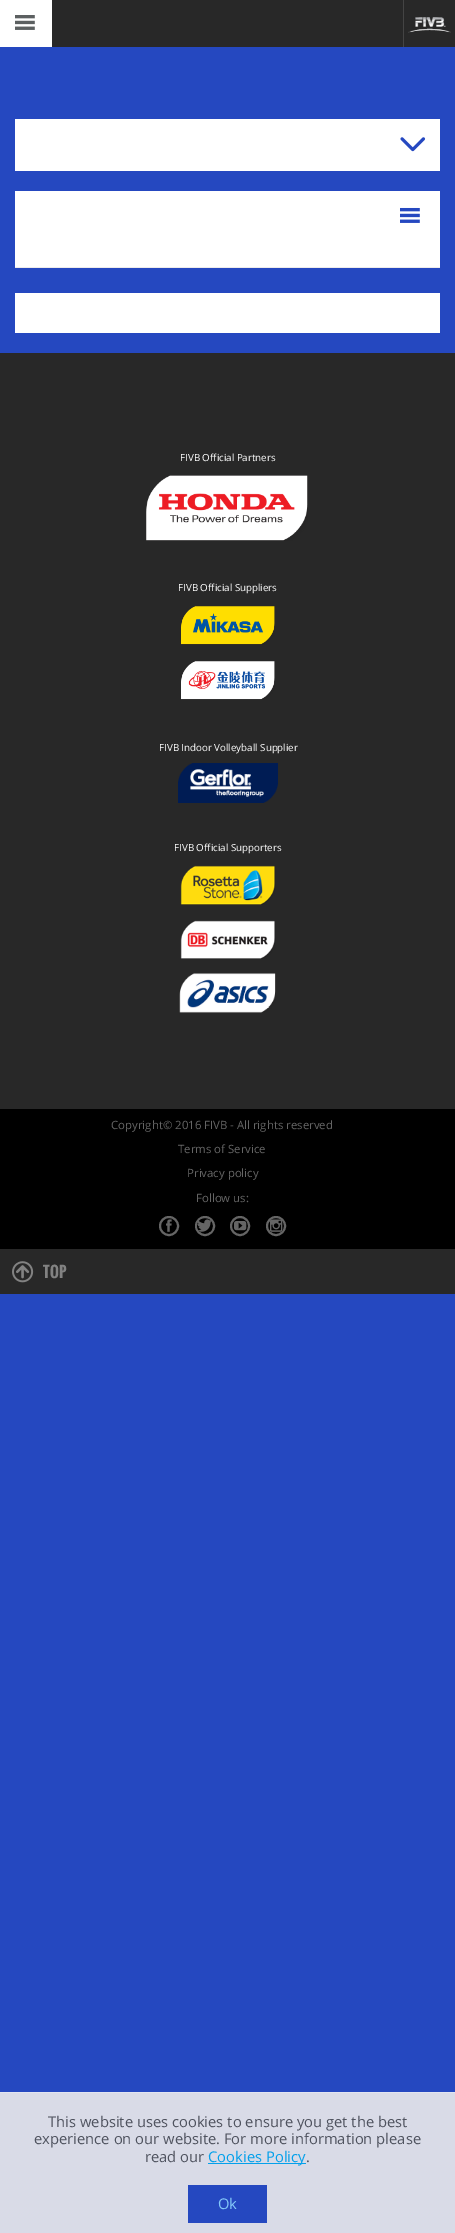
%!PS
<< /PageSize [455 2233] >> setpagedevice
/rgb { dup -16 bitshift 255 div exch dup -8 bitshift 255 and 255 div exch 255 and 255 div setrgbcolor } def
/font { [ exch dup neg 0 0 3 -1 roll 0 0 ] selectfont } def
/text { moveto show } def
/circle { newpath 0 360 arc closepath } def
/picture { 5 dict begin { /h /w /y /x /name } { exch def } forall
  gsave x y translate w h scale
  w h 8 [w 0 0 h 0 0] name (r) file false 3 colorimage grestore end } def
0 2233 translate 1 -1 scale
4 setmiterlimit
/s1 { /OpenSans-Regular 9.75 font 16#FFFFFF rgb } def
/s2 { /OpenSans-Regular 11.4 font 16#656565 rgb } def
/s3 { /Oswald-Bold 15 font 16#828282 rgb } def
/s4 { /OpenSans-Regular 14.75 font 16#505460 rgb } def
/s5 { /OpenSans-Regular 14.75 font 16#04A1EB rgb } def
/s6 { /OpenSans-Regular 14.75 font 16#84C8F9 rgb } def
16#2548C0 rgb
0 0 455 2233 rectfill
16#282828 rgb
52 0 403 47 rectfill
16#FFFFFF rgb
0 0 52 47 rectfill
(pic1.raw) 15 15 20 15 picture
16#444444 rgb
403 0 1 47 rectfill
(pic2.raw) 408 17 43 16 picture
16#FFFFFF rgb
15 119 425 52 rectfill
(pic3.raw) 400 137 26 15 picture
15 191 425 76 rectfill
16#EDEBEB rgb
15 267 425 1 rectfill
(pic4.raw) 400 207 20 16 picture
16#FFFFFF rgb
15 293 425 40 rectfill
16#282828 rgb
0 353 455 756 rectfill
s1
(FIVB Official Partners) 180 461 text
(pic5.raw) 146 475 162 66 picture
(FIVB Official Suppliers) 178 591 text
(pic6.raw) 181 606 94 39 picture
(pic7.raw) 181 661 94 39 picture
(FIVB Indoor Volleyball Supplier) 159 751 text
(pic8.raw) 178 763 100 40 picture
(FIVB Official Supporters) 174 851 text
(pic9.raw) 180 865 96 40 picture
(pic10.raw) 180 920 96 39 picture
(pic11.raw) 179 973 97 40 picture
16#000000 rgb
0 1109 455 140 rectfill
s2
(Copyright© 2016 FIVB - All rights reserved) 111 1129 text
(Terms of Service) 178 1153 text
(Privacy policy) 187 1177 text
(Follow us:) 196 1202 text
2 setlinewidth
169 1226 9 circle stroke
(pic12.raw) 166 1219 6 13 picture
205 1226 9 circle stroke
(pic13.raw) 197 1219 15 13 picture
240 1226 9 circle stroke
(pic14.raw) 234 1221 13 10 picture
276 1226 9 circle stroke
(pic15.raw) 270 1219 13 13 picture
16#282828 rgb
0 1249 455 45 rectfill
(pic16.raw) 12 1261 22 22 picture
s3
(TOP) 43 1278 text
16#D9DBE7 rgb
0 2093 455 140 rectfill
16#E1E4F0 rgb
0 2092 455 1 rectfill
s4
(This website uses cookies to ensure you get the best) 48 2127 text
(experience on our website. For more information please) 34 2144 text
(read our) 145 2162 text
16#04A1EB rgb
208 2163 98 1 rectfill
(Cookies Policy) 208 2162 text
s4
(.) 306 2162 text
16#2548C0 rgb
188 2185 79 38 rectfill
s6
(Ok) 218 2209 text
showpage
